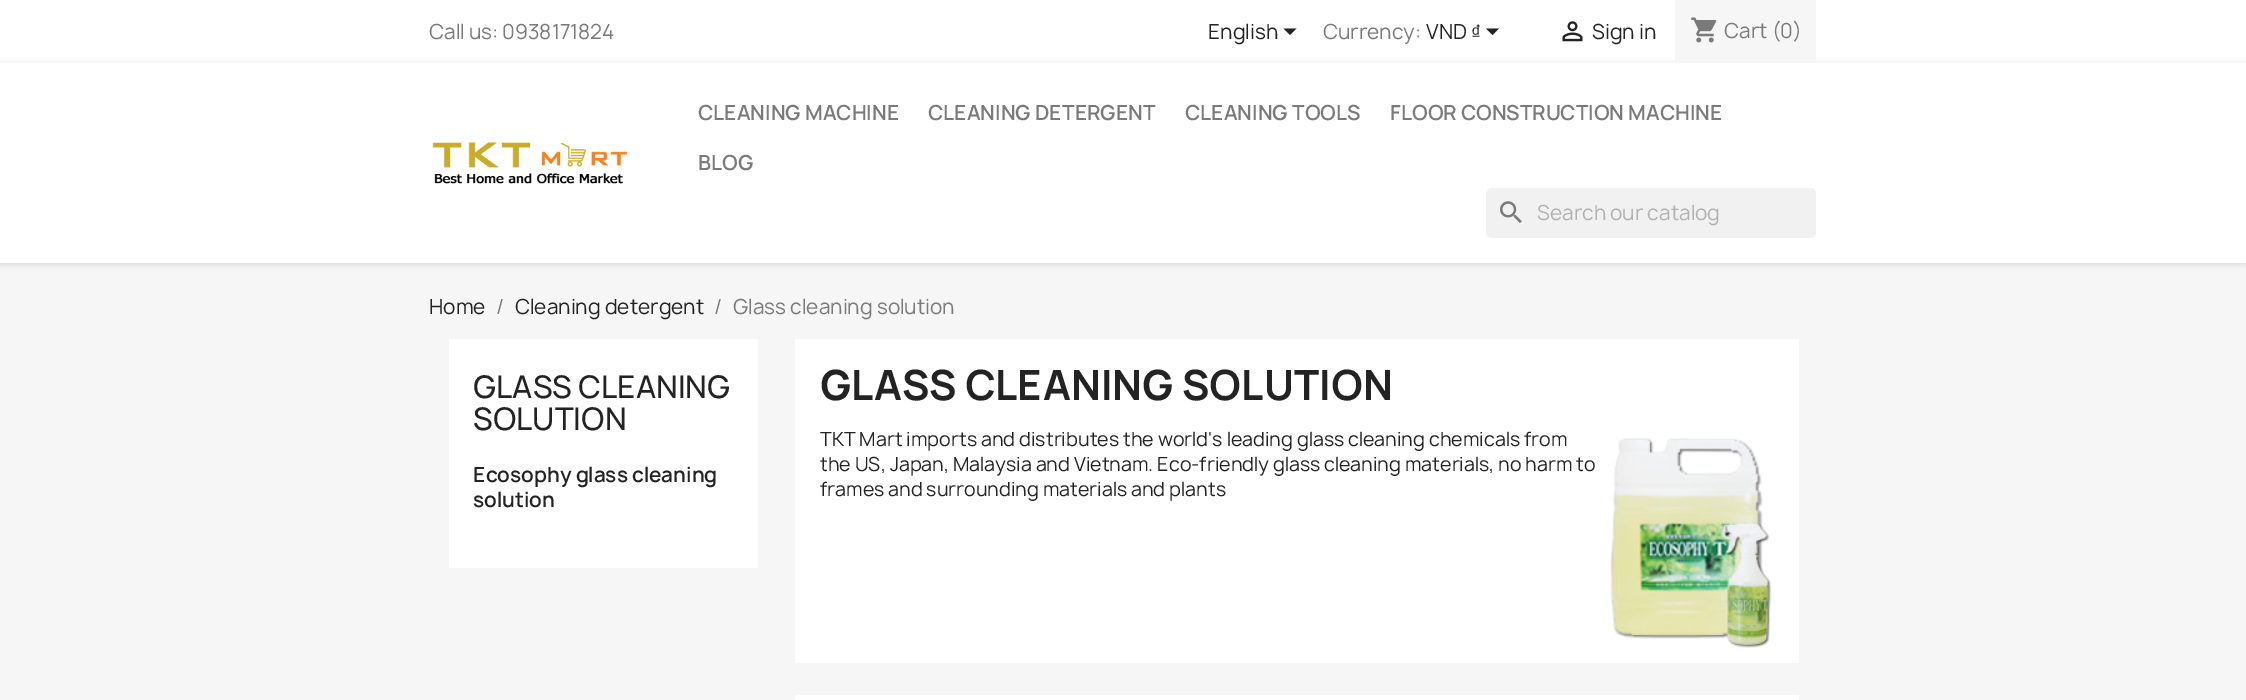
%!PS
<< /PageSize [2246 700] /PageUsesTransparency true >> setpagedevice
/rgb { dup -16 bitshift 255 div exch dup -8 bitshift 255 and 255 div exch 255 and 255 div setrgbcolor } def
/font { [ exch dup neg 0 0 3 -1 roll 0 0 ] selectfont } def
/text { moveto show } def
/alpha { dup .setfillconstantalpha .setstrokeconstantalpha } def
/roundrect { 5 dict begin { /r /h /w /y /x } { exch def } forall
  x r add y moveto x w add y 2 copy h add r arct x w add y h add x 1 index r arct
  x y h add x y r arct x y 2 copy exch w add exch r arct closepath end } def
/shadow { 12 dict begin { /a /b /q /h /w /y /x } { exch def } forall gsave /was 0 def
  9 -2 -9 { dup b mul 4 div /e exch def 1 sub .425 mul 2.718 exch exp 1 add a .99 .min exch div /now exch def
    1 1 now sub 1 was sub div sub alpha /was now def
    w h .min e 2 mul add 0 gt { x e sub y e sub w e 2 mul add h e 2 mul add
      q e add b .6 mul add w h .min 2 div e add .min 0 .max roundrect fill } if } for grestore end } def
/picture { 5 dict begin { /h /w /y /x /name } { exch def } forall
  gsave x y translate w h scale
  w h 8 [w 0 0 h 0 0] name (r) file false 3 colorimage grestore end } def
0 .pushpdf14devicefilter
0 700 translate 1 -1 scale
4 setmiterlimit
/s1 { /Manrope-Regular 20 font 16#7A7A7A rgb } def
/s2 { /Manrope-Regular 20 font 16#232323 rgb } def
/s3 { /LiberationSans-Regular 20 font 16#232323 rgb } def
/s4 { /Manrope-SemiBold 20 font 16#7A7A7A rgb } def
/s5 { /Manrope-Regular 20 font 16#B1B1B1 rgb } def
/s6 { /Manrope-Medium 30 font 16#232323 rgb } def
/s7 { /Manrope-SemiBold 20 font 16#232323 rgb } def
/s8 { /Manrope-Bold 40 font 16#232323 rgb } def
/s9 { /Manrope-Regular 18.75 font 16#232323 rgb } def
16#F6F6F6 rgb
0 0 2246 700 rectfill
16#000000 rgb
0 3 2246 262 0 3 0.11 shadow
16#FFFFFF rgb
0 0 2246 263 rectfill
16#F6F6F6 rgb
0 60 2246 3 rectfill
s1
(Call us: 0938171824) 429 39 text
s2
(English) 1208 39 text
1283.5 28.5 moveto 1296.5 28.5 lineto 1290 35 lineto closepath fill
s1
(Currency:) 1323 39 text
s2
(VND) 1426 39 text
s3
(₫) 1471 39 text
1486 28.5 moveto 1499 28.5 lineto 1492.5 35 lineto closepath fill
(pic1.raw) 1562 21 21 21 picture
s2
(Sign in) 1592 39 text
16#F6F6F6 rgb
1675 0 141 60 rectfill
(pic2.raw) 1691 17 26 26 picture
s1
(Cart \(0\)) 1724 38 text
(pic3.raw) 432 142 196 42 picture
s4
(CLEANING MACHINE) 698 120 text
(CLEANING DETERGENT) 928 120 text
(CLEANING TOOLS) 1185 120 text
(FLOOR CONSTRUCTION MACHINE) 1390 120 text
(BLOG) 698 170 text
16#F1F1F1 rgb
1486 188 330 50 6 roundrect fill
(pic4.raw) 1500 201 22 22 picture
s5
(Search our catalog) 1537 220 text
s2
(Home) 429 314 text
s1
(/) 496 314 text
s2
(Cleaning detergent) 515 314 text
s1
(/) 714 314 text
(Glass cleaning solution) 733 314 text
16#FFFFFF rgb
449 339 309 229 rectfill
s6
(GLASS CLEANING) 473 398 text
(SOLUTION) 473 430 text
s7
(Ecosophy glass cleaning) 473 482 text
(solution) 473 507 text
16#FFFFFF rgb
795 339 1004 324 rectfill
s8
(GLASS CLEANING SOLUTION) 820 400 text
s9
(TKT Mart imports and distributes the world's leading glass cleaning chemicals from) 820 446 text
(the US, Japan, Malaysia and Vietnam. Eco-friendly glass cleaning materials, no harm to) 820 471 text
(frames and surrounding materials and plants) 820 496 text
(pic5.raw) 1610 437 162 211 picture
16#FFFFFF rgb
795 695 1004 5 rectfill
.poppdf14devicefilter showpage
